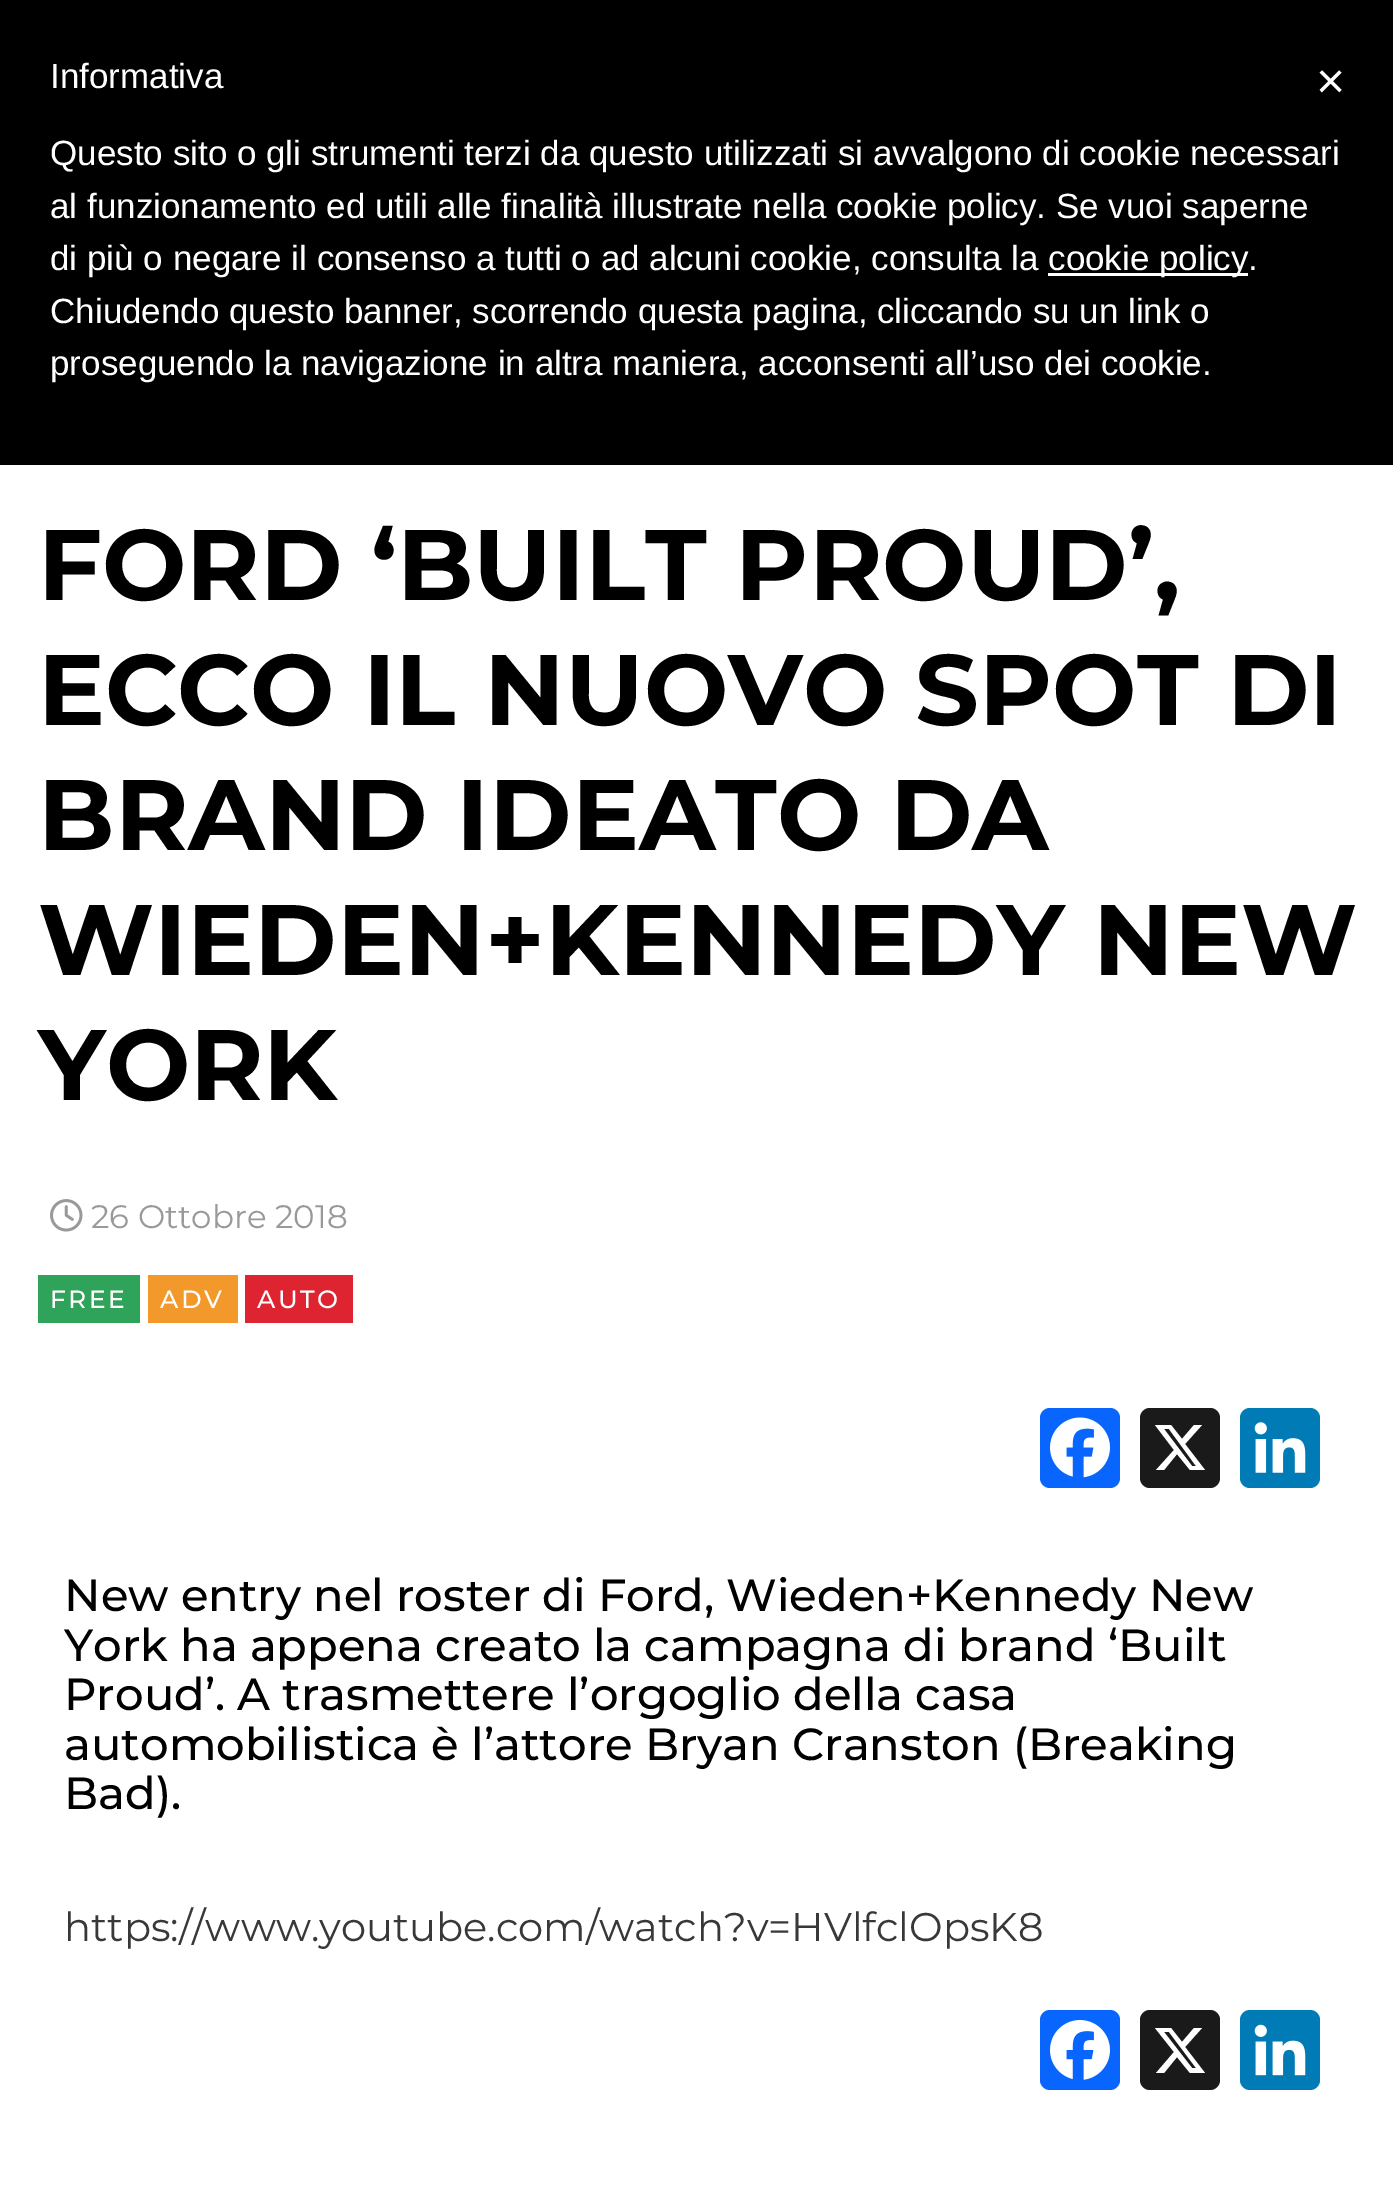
%!PS
<< /PageSize [1393 2187] >> setpagedevice
/rgb { dup -16 bitshift 255 div exch dup -8 bitshift 255 and 255 div exch 255 and 255 div setrgbcolor } def
/font { [ exch dup neg 0 0 3 -1 roll 0 0 ] selectfont } def
/text { moveto show } def
/roundrect { 5 dict begin { /r /h /w /y /x } { exch def } forall
  x r add y moveto x w add y 2 copy h add r arct x w add y h add x 1 index r arct
  x y h add x y r arct x y 2 copy exch w add exch r arct closepath end } def
/picture { 5 dict begin { /h /w /y /x /name } { exch def } forall
  gsave x y translate w h scale
  w h 8 [w 0 0 h 0 0] name (r) file false 3 colorimage grestore end } def
0 2187 translate 1 -1 scale
4 setmiterlimit
/s1 { /LiberationSans-Regular 35 font 16#FFFFFF rgb } def
/s2 { /LiberationSans-Regular 50 font 16#FFFFFF rgb } def
/s3 { /Montserrat-Bold 100 font 16#000000 rgb } def
/s4 { /Montserrat-Regular 32.5 font 16#999999 rgb } def
/s5 { /Montserrat-Medium 45 font 16#000000 rgb } def
/s6 { /Montserrat-Regular 40 font 16#383838 rgb } def
16#FFFFFF rgb
0 0 1393 2187 rectfill
16#000000 rgb
0 0 1393 465 rectfill
s1
(Informativa) 50 88 text
(Questo sito o gli strumenti terzi da questo utilizzati si avvalgono di cookie necessari) 50 165 text
(al funzionamento ed utili alle finalità illustrate nella cookie policy. Se vuoi saperne) 50 218 text
(di più o negare il consenso a tutti o ad alcuni cookie, consulta la) 50 270 text
1048 273 200 3 rectfill
(cookie policy.) 1048 270 text
(Chiudendo questo banner, scorrendo questa pagina, cliccando su un link o) 50 323 text
(proseguendo la navigazione in altra maniera, acconsenti all’uso dei cookie.) 50 375 text
s2
(×) 1316 98 text
s3
(FORD ‘BUILT PROUD’,) 38 600 text
(ECCO IL NUOVO SPOT DI) 38 725 text
(BRAND IDEATO DA) 38 850 text
(WIEDEN+KENNEDY NEW) 38 975 text
(YORK) 38 1100 text
(pic1.raw) 50 1199 33 33 picture
s4
(26 Ottobre 2018) 91 1228 text
16#2FA359 rgb
38 1275 102 48 rectfill
/Montserrat-Medium 25 font
16#FFFFFF rgb
50 1308 moveto 2.5 0 (FREE) ashow
16#F3992B rgb
148 1275 90 48 rectfill
16#FFFFFF rgb
160 1308 moveto 2.5 0 (ADV) ashow
16#DE2431 rgb
245 1275 108 48 rectfill
16#FFFFFF rgb
257 1308 moveto 2.5 0 (AUTO) ashow
16#0866FF rgb
1040 1408 80 80 10 roundrect fill
(pic2.raw) 1050 1417 60 61 picture
16#1A1A1A rgb
1140 1408 80 80 10 roundrect fill
16#FFFFFF rgb
1194 1425 moveto 1202 1425 lineto 1185 1444 lineto 1205 1470 lineto 1190 1470 lineto 1177 1454 lineto 1164 1470 lineto 1156 1470 lineto 1174 1450 lineto 1155 1425 lineto 1171 1425 lineto 1182 1439 lineto closepath 1192 1466 moveto 1196 1466 lineto 1169 1429 lineto 1164 1429 lineto closepath fill
16#007BB5 rgb
1240 1408 80 80 10 roundrect fill
(pic3.raw) 1254 1422 52 51 picture
s5
(New entry nel roster di Ford, Wieden+Kennedy New) 64 1611 text
(York ha appena creato la campagna di brand ‘Built) 64 1661 text
(Proud’. A trasmettere l’orgoglio della casa) 64 1710 text
(automobilistica è l’attore Bryan Cranston \(Breaking) 64 1760 text
(Bad\).) 64 1809 text
s6
(https://www.youtube.com/watch?v=HVlfclOpsK8) 64 1941 text
16#0866FF rgb
1040 2010 80 80 10 roundrect fill
(pic4.raw) 1050 2020 60 60 picture
16#1A1A1A rgb
1140 2010 80 80 10 roundrect fill
16#FFFFFF rgb
1194 2028 moveto 1202 2028 lineto 1185 2047 lineto 1205 2073 lineto 1190 2073 lineto 1177 2057 lineto 1164 2073 lineto 1156 2073 lineto 1174 2052 lineto 1155 2028 lineto 1171 2028 lineto 1182 2042 lineto closepath 1192 2068 moveto 1196 2068 lineto 1169 2032 lineto 1164 2032 lineto closepath fill
16#007BB5 rgb
1240 2010 80 80 10 roundrect fill
(pic5.raw) 1254 2024 52 52 picture
showpage
